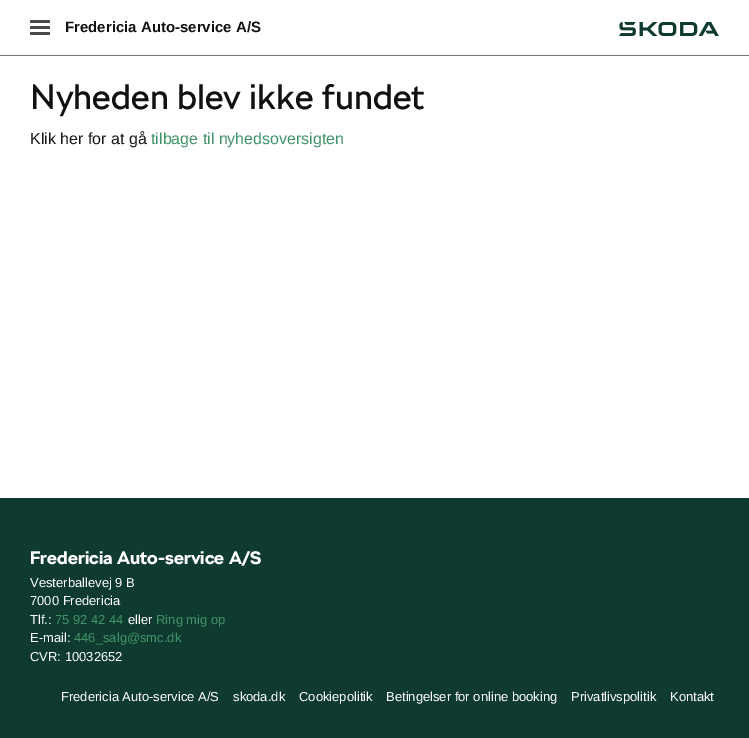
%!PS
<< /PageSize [749 738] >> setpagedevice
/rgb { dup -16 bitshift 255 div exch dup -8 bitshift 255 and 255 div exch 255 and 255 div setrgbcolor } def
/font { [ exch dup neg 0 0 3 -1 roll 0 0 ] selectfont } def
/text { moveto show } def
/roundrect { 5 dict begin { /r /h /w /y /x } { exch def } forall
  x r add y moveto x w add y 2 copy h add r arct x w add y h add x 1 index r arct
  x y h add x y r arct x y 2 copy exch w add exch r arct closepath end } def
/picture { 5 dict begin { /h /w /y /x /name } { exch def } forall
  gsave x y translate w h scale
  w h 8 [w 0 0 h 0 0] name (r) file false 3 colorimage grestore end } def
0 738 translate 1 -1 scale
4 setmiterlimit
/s1 { /LiberationSans-Bold 15 font 16#111111 rgb } def
/s2 { /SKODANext-Regular 35 font 16#111111 rgb } def
/s3 { /LiberationSans-Regular 16 font 16#161718 rgb } def
/s4 { /LiberationSans-Regular 16 font 16#419468 rgb } def
/s5 { /SKODANext-Bold 18 font 16#FFFFFF rgb } def
/s6 { /LiberationSans-Regular 13 font 16#FFFFFF rgb } def
/s7 { /LiberationSans-Regular 13 font 16#419468 rgb } def
16#FFFFFF rgb
0 0 749 738 rectfill
16#777777 rgb
0 55 749 1 rectfill
16#4A4A4A rgb
30 20 20 3 1 roundrect fill
30 26 20 3 1 roundrect fill
30 32 20 3 1 roundrect fill
s1
(Fredericia Auto-service A/S) 65 32 text
(pic1.raw) 619 22 100 14 picture
s2
(Nyheden blev ikke fundet) 30 109 text
s3
(Klik her for at gå) 30 144 text
s4
(tilbage til nyhedsoversigten) 151 144 text
16#0E3A2F rgb
0 498 749 240 rectfill
s5
(Fredericia Auto-service A/S) 30 564 text
s6
(Vesterballevej 9 B) 30 587 text
(7000 Fredericia) 30 605 text
(Tlf.:) 30 624 text
s7
(75 92 42 44) 55 624 text
s6
(eller) 128 624 text
s7
(Ring mig op) 156 624 text
s6
(E-mail:) 30 642 text
s7
(446_salg@smc.dk) 74 642 text
s6
(CVR: 10032652) 30 661 text
(Fredericia Auto-service A/S) 61 701 text
(skoda.dk) 233 701 text
(Cookiepolitik) 299 701 text
(Betingelser for online booking) 386 701 text
(Privatlivspolitik) 571 701 text
(Kontakt) 670 701 text
showpage
